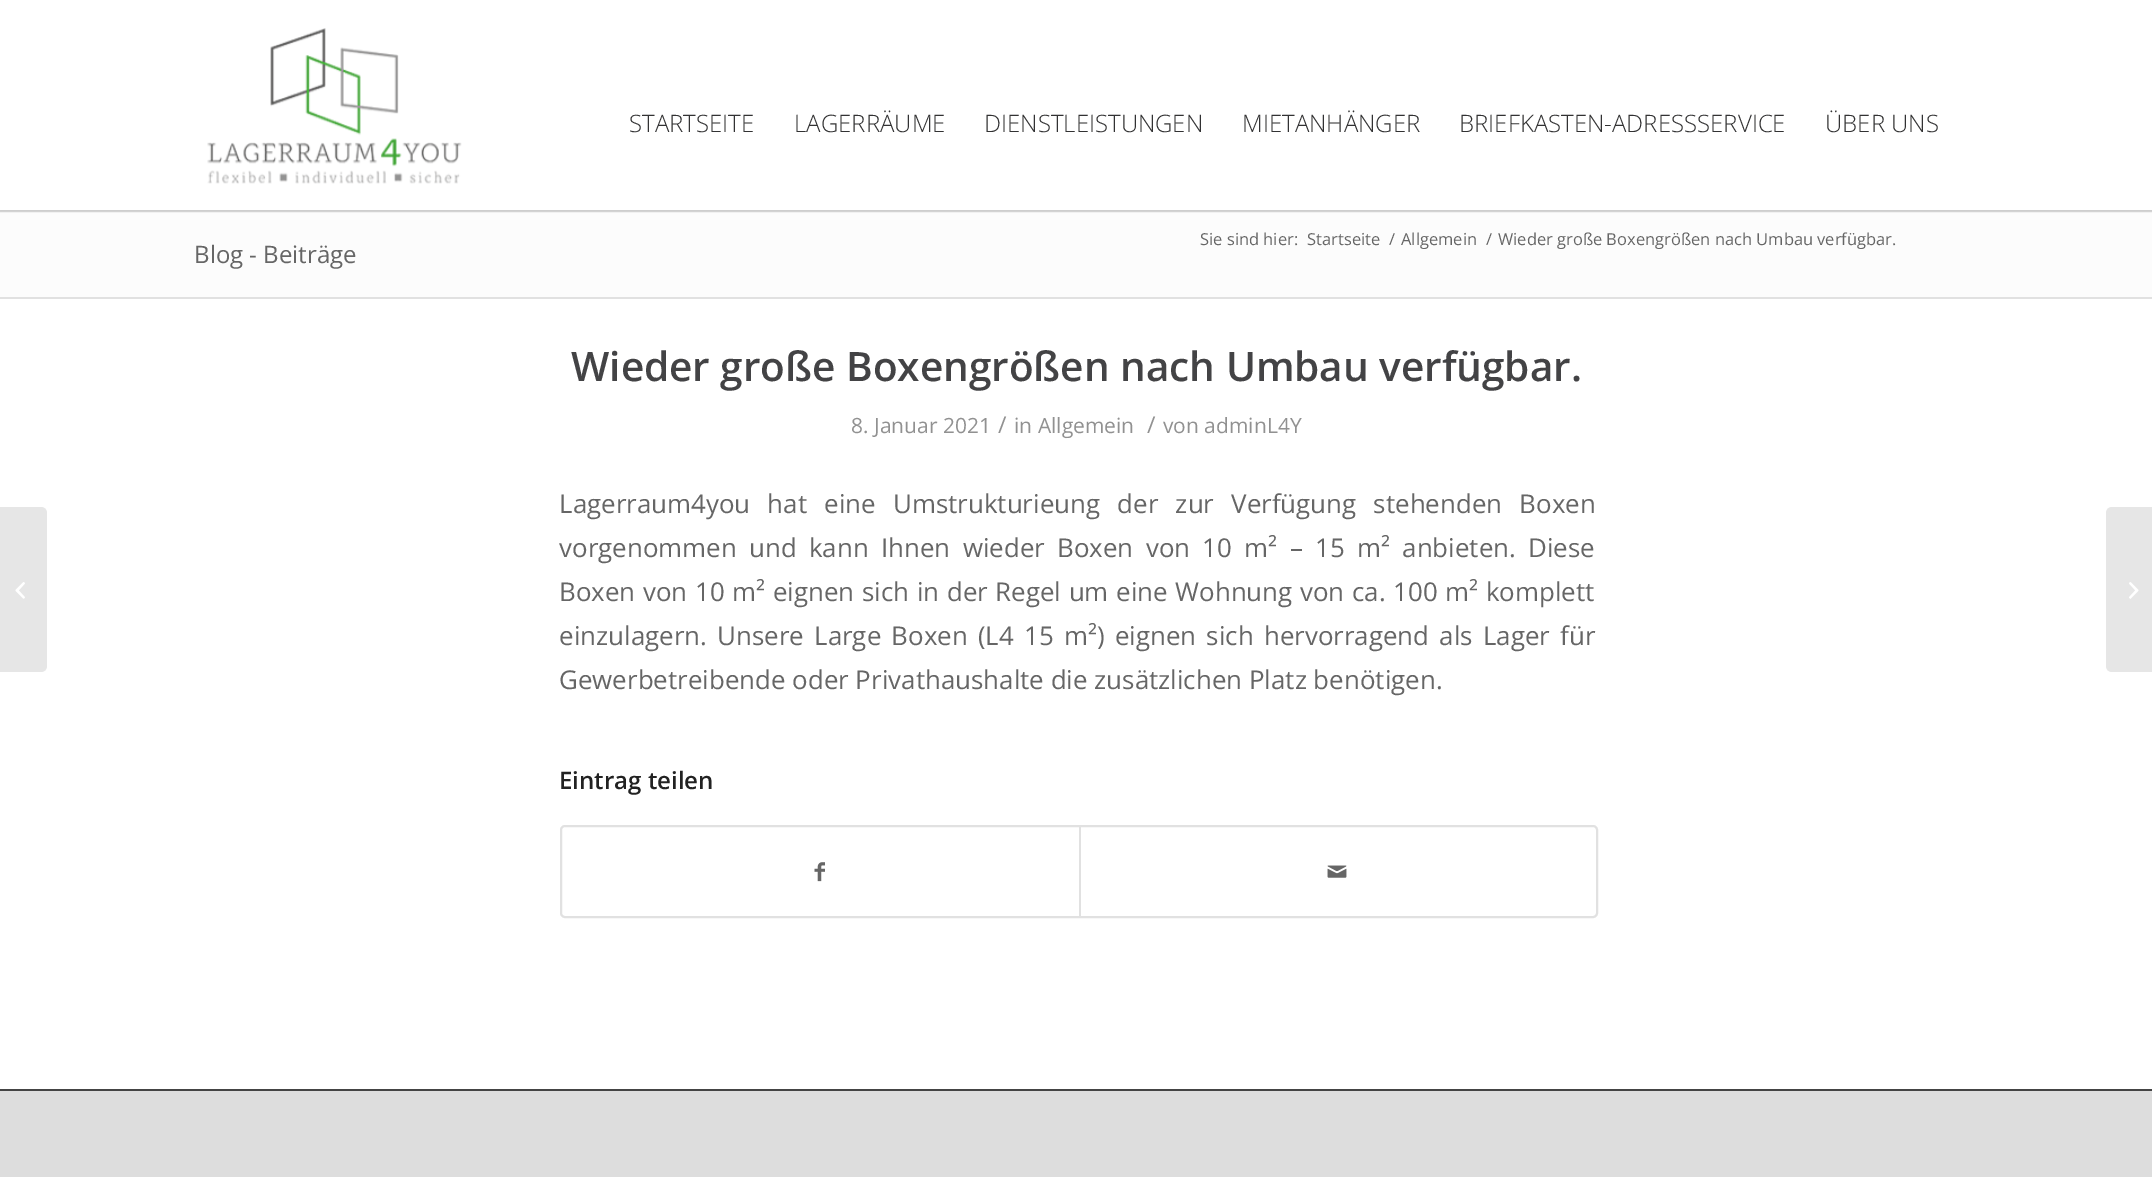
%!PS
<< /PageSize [2152 1177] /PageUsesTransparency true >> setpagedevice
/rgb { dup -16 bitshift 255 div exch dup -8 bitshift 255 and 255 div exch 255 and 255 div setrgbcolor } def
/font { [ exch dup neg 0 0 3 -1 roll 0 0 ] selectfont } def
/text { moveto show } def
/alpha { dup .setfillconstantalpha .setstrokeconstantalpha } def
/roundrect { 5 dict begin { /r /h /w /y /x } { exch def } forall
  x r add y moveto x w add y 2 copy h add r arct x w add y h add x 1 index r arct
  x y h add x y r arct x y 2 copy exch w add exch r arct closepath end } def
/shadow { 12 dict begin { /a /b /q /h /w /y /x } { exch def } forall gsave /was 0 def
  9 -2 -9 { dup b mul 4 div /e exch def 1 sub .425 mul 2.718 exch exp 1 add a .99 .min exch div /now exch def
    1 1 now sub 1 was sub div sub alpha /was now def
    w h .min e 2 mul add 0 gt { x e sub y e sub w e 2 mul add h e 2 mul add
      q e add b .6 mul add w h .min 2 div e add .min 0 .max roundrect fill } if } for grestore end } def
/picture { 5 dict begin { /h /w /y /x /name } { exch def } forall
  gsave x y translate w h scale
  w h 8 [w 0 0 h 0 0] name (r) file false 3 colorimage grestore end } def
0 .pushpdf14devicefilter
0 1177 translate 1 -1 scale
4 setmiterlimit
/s1 { /OpenSans-Light 24 font 16#323233 rgb } def
/s2 { /OpenSans-Regular 16.5 font 16#666666 rgb } def
/s3 { /OpenSans-Regular 24 font 16#666666 rgb } def
/s4 { /OpenSans-SemiBold 40.5 font 16#434345 rgb } def
/s5 { /OpenSans-Regular 21 font 16#919191 rgb } def
/s6 { /OpenSans-Regular 23 font 16#919191 rgb } def
/s7 { /OpenSans-Regular 25.9 font 16#666666 rgb } def
/s8 { /OpenSans-SemiBold 24 font 16#222222 rgb } def
16#FFFFFF rgb
0 0 2152 1177 rectfill
16#FCFCFC rgb
0 212 2152 85 rectfill
16#E1E1E1 rgb
0 210 2152 2 rectfill
gsave
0 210 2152 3 rectclip
16#000000 rgb
-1 -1 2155 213 0 1.5 0.1 shadow
grestore
(pic1.raw) 207 28 255 156 picture
s1
(STARTSEITE) 629 132 text
(LAGERRÄUME) 794 132 text
(DIENSTLEISTUNGEN) 984 132 text
(MIETANHÄNGER) 1242 132 text
(BRIEFKASTEN-ADRESSSERVICE) 1459 132 text
(ÜBER UNS) 1825 132 text
16#E6E6E6 rgb
0 507 moveto 41 507 lineto 44.5 507 47 509.5 47 513 curveto 47 666 lineto 47 669.5 44.5 672 41 672 curveto 0 672 lineto closepath fill
(pic2.raw) 15 582 10 17 picture
s2
(Sie sind hier:) 1200 245 text
(Startseite) 1307 245 text
(/) 1389 245 text
(Allgemein) 1401 245 text
(/) 1486 245 text
(Wieder große Boxengrößen nach Umbau verfügbar.) 1498 245 text
s3
(Blog - Beiträge) 194 263 text
16#E1E1E1 rgb
0 297 2152 2 rectfill
s4
(Wieder große Boxengrößen nach Umbau verfügbar.) 571 381 text
s5
(8. Januar 2021) 851 433 text
s6
(/) 998 433 text
s5
(in Allgemein) 1014 433 text
s6
(/) 1147 433 text
s5
(von adminL4Y) 1163 433 text
/OpenSans-Regular 25.9 font
16#666666 rgb
559 513 moveto 10.5 0 32 (Lagerraum4you hat eine Umstrukturieung der zur Verfügung stehenden Boxen) widthshow
559 557 moveto 5.6 0 32 (vorgenommen und kann Ihnen wieder Boxen von 10 m² – 15 m² anbieten. Diese) widthshow
559 601 moveto 0.9 0 32 (Boxen von 10 m² eignen sich in der Regel um eine Wohnung von ca. 100 m² komplett) widthshow
559 645 moveto 3.5 0 32 (einzulagern. Unsere Large Boxen \(L4 15 m²\) eignen sich hervorragend als Lager für) widthshow
(Gewerbetreibende oder Privathaushalte die zusätzlichen Platz benötigen.) 559 689 text
s8
(Eintrag teilen) 559 789 text
16#E1E1E1 rgb
2 setlinewidth
561 826 1036 91 4 roundrect stroke
(pic3.raw) 814 862 11 20 picture
1079 827 2 90 rectfill
(pic4.raw) 1327 865 20 13 picture
16#DDDDDD rgb
0 1091 2152 86 rectfill
16#444444 rgb
0 1089 2152 2 rectfill
16#E6E6E6 rgb
2112 507 moveto 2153 507 lineto 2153 672 lineto 2112 672 lineto 2108.5 672 2106 669.5 2106 666 curveto 2106 513 lineto 2106 509.5 2108.5 507 2112 507 curveto closepath fill
(pic5.raw) 2129 582 10 17 picture
.poppdf14devicefilter showpage
